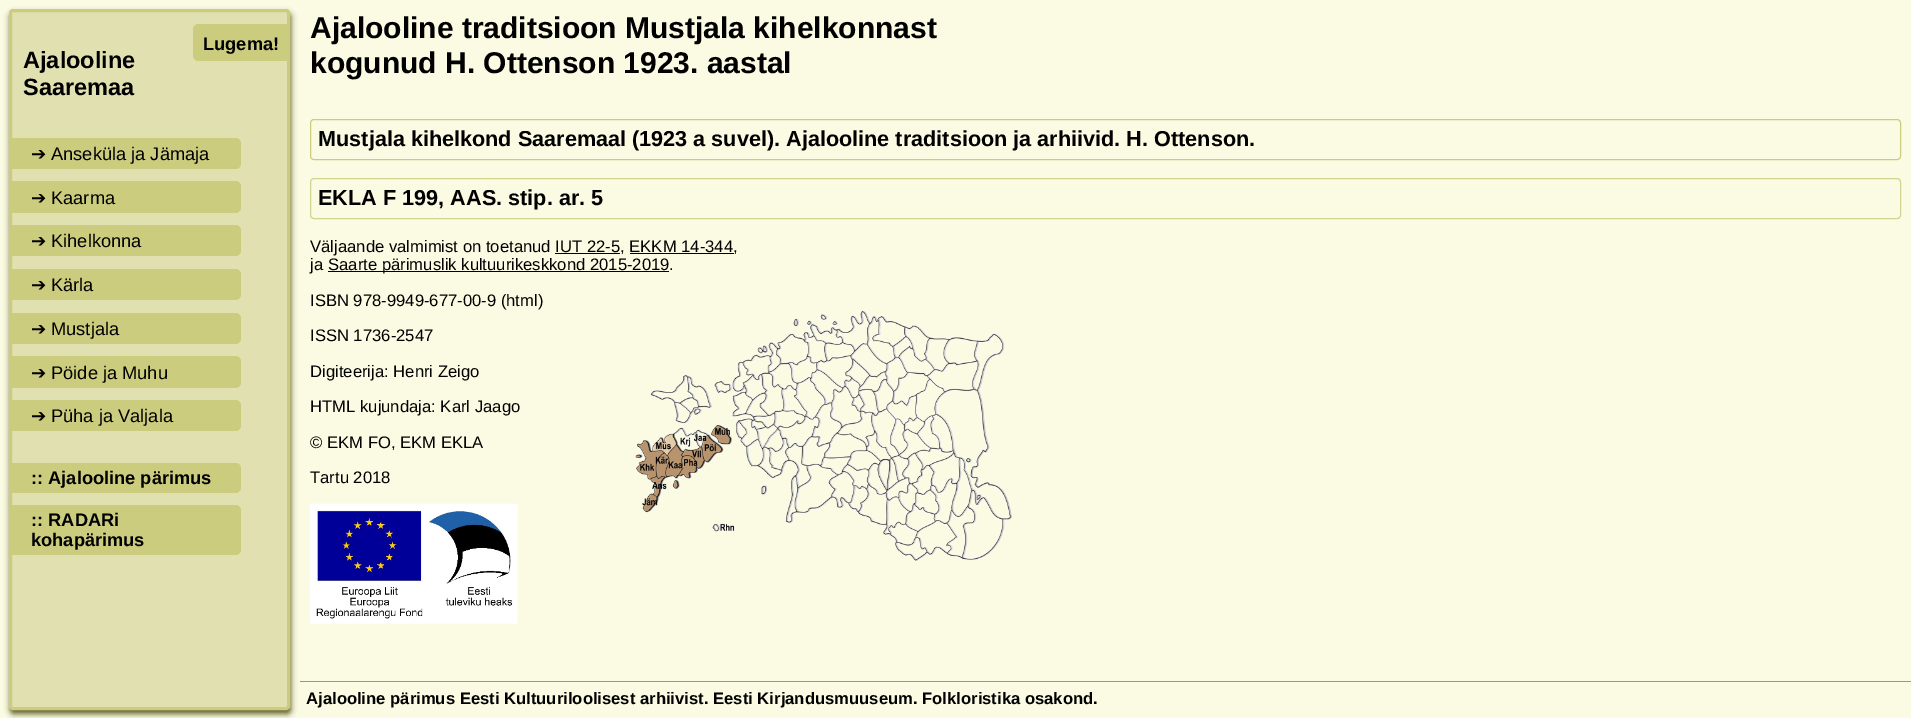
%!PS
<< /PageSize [1911 718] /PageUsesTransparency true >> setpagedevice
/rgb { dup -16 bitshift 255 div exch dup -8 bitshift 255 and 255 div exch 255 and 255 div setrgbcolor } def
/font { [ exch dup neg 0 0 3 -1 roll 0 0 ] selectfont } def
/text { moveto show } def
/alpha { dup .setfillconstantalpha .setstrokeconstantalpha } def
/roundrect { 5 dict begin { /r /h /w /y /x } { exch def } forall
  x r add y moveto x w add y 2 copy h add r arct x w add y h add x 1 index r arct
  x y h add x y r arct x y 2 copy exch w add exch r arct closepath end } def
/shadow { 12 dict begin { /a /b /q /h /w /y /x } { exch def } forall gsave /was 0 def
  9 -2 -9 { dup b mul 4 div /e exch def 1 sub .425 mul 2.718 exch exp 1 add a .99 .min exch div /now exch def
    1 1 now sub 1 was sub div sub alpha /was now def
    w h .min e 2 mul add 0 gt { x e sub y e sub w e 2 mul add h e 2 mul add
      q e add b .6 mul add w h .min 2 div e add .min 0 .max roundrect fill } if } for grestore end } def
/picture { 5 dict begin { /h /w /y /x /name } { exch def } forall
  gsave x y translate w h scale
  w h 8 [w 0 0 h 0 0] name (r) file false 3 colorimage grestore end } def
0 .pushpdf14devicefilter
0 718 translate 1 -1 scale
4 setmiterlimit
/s1 { /LiberationSans-Bold 18.25 font 16#000000 rgb } def
/s2 { /LiberationSans-Bold 23.5 font 16#000000 rgb } def
/s3 { /DejaVuSans-Regular 18.25 font 16#000000 rgb } def
/s4 { /LiberationSans-Regular 18.25 font 16#000000 rgb } def
/s5 { /LiberationSans-Bold 30 font 16#000000 rgb } def
/s6 { /LiberationSans-Bold 21.65 font 16#000000 rgb } def
/s7 { /LiberationSans-Regular 16.65 font 16#000000 rgb } def
/s8 { /LiberationSans-Bold 16.65 font 16#000000 rgb } def
16#FBFBE3 rgb
0 0 1911 718 rectfill
16#5B5B24 rgb
10 13 281 701 4 3 1 shadow
16#E0E0B1 rgb
10.5 10.5 278 698 2.5 roundrect gsave fill grestore
16#CCCC7F rgb
3 setlinewidth
stroke
199 24 moveto 288 24 lineto 288 61 lineto 199 61 lineto 195.5 61 193 58.5 193 55 curveto 193 30 lineto 193 26.5 195.5 24 199 24 curveto closepath fill
199 24 moveto 196 24 193 27 193 30 curveto 193 55 lineto 193 58 196 61 199 61 curveto 288 61 lineto 288 60 lineto 199 60 lineto 196 60 194 58 194 55 curveto 194 30 lineto 194 27 196 25 199 25 curveto 288 25 lineto 288 24 lineto closepath fill
s1
(Lugema!) 203 50 text
s2
(Ajalooline) 23 68 text
(Saaremaa) 23 95 text
16#CCCC7F rgb
11 138 moveto 235 138 lineto 238.5 138 241 140.5 241 144 curveto 241 163 lineto 241 166.5 238.5 169 235 169 curveto 11 169 lineto closepath fill
11 169 moveto 235 169 lineto 238 169 241 166 241 163 curveto 241 144 lineto 241 141 238 138 235 138 curveto 11 138 lineto 11 139 lineto 235 139 lineto 238 139 240 141 240 144 curveto 240 163 lineto 240 166 238 168 235 168 curveto 11 168 lineto closepath fill
s3
(➔) 31 160 text
s4
(Anseküla ja Jämaja) 51 160 text
16#CCCC7F rgb
11 181 moveto 235 181 lineto 238.5 181 241 183.5 241 187 curveto 241 207 lineto 241 210.5 238.5 213 235 213 curveto 11 213 lineto closepath fill
11 213 moveto 235 213 lineto 238 213 241 210 241 207 curveto 241 187 lineto 241 184 238 181 235 181 curveto 11 181 lineto 11 182 lineto 235 182 lineto 238 182 240 184 240 187 curveto 240 207 lineto 240 210 238 212 235 212 curveto 11 212 lineto closepath fill
s3
(➔) 31 204 text
s4
(Kaarma) 51 204 text
16#CCCC7F rgb
11 225 moveto 235 225 lineto 238.5 225 241 227.5 241 231 curveto 241 250 lineto 241 253.5 238.5 256 235 256 curveto 11 256 lineto closepath fill
11 256 moveto 235 256 lineto 238 256 241 253 241 250 curveto 241 231 lineto 241 228 238 225 235 225 curveto 11 225 lineto 11 226 lineto 235 226 lineto 238 226 240 228 240 231 curveto 240 250 lineto 240 253 238 255 235 255 curveto 11 255 lineto closepath fill
s3
(➔) 31 247 text
s4
(Kihelkonna) 51 247 text
16#CCCC7F rgb
11 269 moveto 235 269 lineto 238.5 269 241 271.5 241 275 curveto 241 294 lineto 241 297.5 238.5 300 235 300 curveto 11 300 lineto closepath fill
11 300 moveto 235 300 lineto 238 300 241 297 241 294 curveto 241 275 lineto 241 272 238 269 235 269 curveto 11 269 lineto 11 270 lineto 235 270 lineto 238 270 240 272 240 275 curveto 240 294 lineto 240 297 238 299 235 299 curveto 11 299 lineto closepath fill
s3
(➔) 31 291 text
s4
(Kärla) 51 291 text
16#CCCC7F rgb
11 313 moveto 235 313 lineto 238.5 313 241 315.5 241 319 curveto 241 338 lineto 241 341.5 238.5 344 235 344 curveto 11 344 lineto closepath fill
11 344 moveto 235 344 lineto 238 344 241 341 241 338 curveto 241 319 lineto 241 316 238 313 235 313 curveto 11 313 lineto 11 314 lineto 235 314 lineto 238 314 240 316 240 319 curveto 240 338 lineto 240 341 238 343 235 343 curveto 11 343 lineto closepath fill
s3
(➔) 31 335 text
s4
(Mustjala) 51 335 text
16#CCCC7F rgb
11 356 moveto 235 356 lineto 238.5 356 241 358.5 241 362 curveto 241 382 lineto 241 385.5 238.5 388 235 388 curveto 11 388 lineto closepath fill
11 388 moveto 235 388 lineto 238 388 241 385 241 382 curveto 241 362 lineto 241 359 238 356 235 356 curveto 11 356 lineto 11 357 lineto 235 357 lineto 238 357 240 359 240 362 curveto 240 382 lineto 240 385 238 387 235 387 curveto 11 387 lineto closepath fill
s3
(➔) 31 379 text
s4
(Pöide ja Muhu) 51 379 text
16#CCCC7F rgb
11 400 moveto 235 400 lineto 238.5 400 241 402.5 241 406 curveto 241 425 lineto 241 428.5 238.5 431 235 431 curveto 11 431 lineto closepath fill
11 431 moveto 235 431 lineto 238 431 241 428 241 425 curveto 241 406 lineto 241 403 238 400 235 400 curveto 11 400 lineto 11 401 lineto 235 401 lineto 238 401 240 403 240 406 curveto 240 425 lineto 240 428 238 430 235 430 curveto 11 430 lineto closepath fill
s3
(➔) 31 422 text
s4
(Püha ja Valjala) 51 422 text
16#CCCC7F rgb
11 463 moveto 235 463 lineto 238.5 463 241 465.5 241 469 curveto 241 487 lineto 241 490.5 238.5 493 235 493 curveto 11 493 lineto closepath fill
11 493 moveto 235 493 lineto 238 493 241 490 241 487 curveto 241 469 lineto 241 466 238 463 235 463 curveto 11 463 lineto 11 464 lineto 235 464 lineto 238 464 240 466 240 469 curveto 240 487 lineto 240 490 238 492 235 492 curveto 11 492 lineto closepath fill
s1
(:: Ajalooline pärimus) 31 484 text
16#CCCC7F rgb
11 505 moveto 235 505 lineto 238.5 505 241 507.5 241 511 curveto 241 549 lineto 241 552.5 238.5 555 235 555 curveto 11 555 lineto closepath fill
11 555 moveto 235 555 lineto 238 555 241 552 241 549 curveto 241 511 lineto 241 508 238 505 235 505 curveto 11 505 lineto 11 506 lineto 235 506 lineto 238 506 240 508 240 511 curveto 240 549 lineto 240 552 238 554 235 554 curveto 11 554 lineto closepath fill
s1
(:: RADARi) 31 526 text
(kohapärimus) 31 546 text
s5
(Ajalooline traditsioon Mustjala kihelkonnast) 310 38 text
(kogunud H. Ottenson 1923. aastal) 310 73 text
16#CCCC7F rgb
1 setlinewidth
310.5 119.5 1590 40 3.5 roundrect stroke
s6
(Mustjala kihelkond Saaremaal \(1923 a suvel\). Ajalooline traditsioon ja arhiivid. H. Ottenson.) 318 146 text
16#D3D392 rgb
310.5 178.5 1590 40 3.5 roundrect stroke
s6
(EKLA F 199, AAS. stip. ar. 5) 318 205 text
s7
(Väljaande valmimist on toetanud IUT 22-5, EKKM 14-344,) 310 252 text
555 253 65 1 rectfill
630 253 104 1 rectfill
(ja) 310 270 text
328 271 341 1 rectfill
(Saarte pärimuslik kultuurikeskkond 2015-2019.) 328 270 text
(ISBN 978-9949-677-00-9 \(html\)) 310 306 text
(ISSN 1736-2547) 310 341 text
(pic1.raw) 635 310 378 252 picture
(Digiteerija: Henri Zeigo) 310 377 text
(HTML kujundaja: Karl Jaago) 310 412 text
(© EKM FO, EKM EKLA) 310 448 text
(Tartu 2018) 310 483 text
(pic2.raw) 310 503 208 121 picture
16#8F9C81 rgb
300 681 1611 1 rectfill
s8
(Ajalooline pärimus Eesti Kultuuriloolisest arhiivist. Eesti Kirjandusmuuseum. Folkloristika osakond.) 306 704 text
.poppdf14devicefilter showpage
